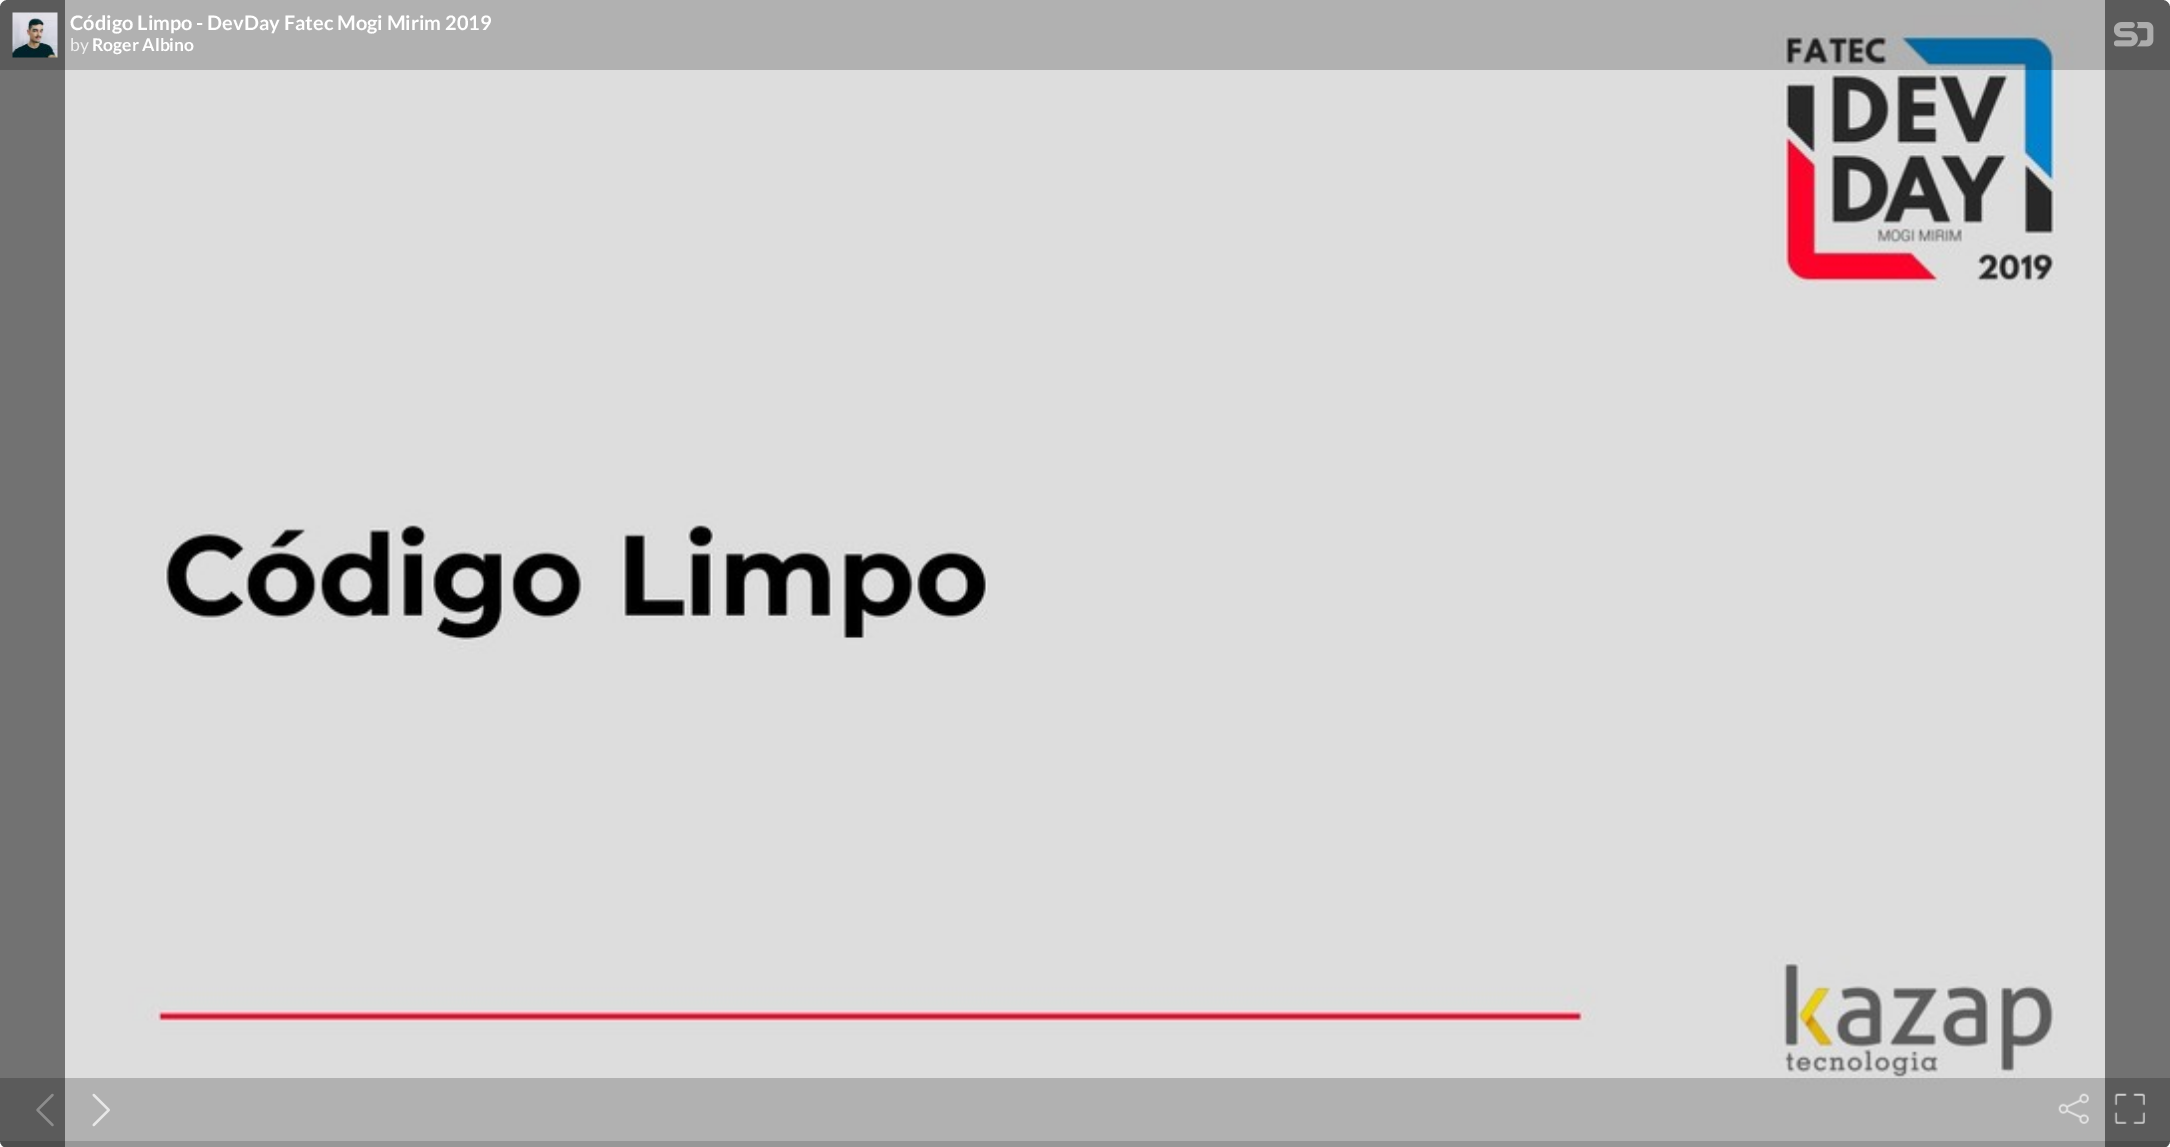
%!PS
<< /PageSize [2170 1147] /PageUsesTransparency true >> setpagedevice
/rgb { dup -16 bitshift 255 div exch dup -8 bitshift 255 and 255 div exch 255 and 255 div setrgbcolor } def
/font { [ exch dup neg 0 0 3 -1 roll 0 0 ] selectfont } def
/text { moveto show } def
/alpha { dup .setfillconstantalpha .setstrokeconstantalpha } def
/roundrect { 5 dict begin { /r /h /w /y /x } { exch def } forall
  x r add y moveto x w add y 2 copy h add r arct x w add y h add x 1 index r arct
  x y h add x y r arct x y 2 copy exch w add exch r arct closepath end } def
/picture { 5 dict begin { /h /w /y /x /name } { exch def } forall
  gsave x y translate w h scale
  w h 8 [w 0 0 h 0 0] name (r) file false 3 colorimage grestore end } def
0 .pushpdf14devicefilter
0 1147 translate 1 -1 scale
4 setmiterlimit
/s1 { /Lato-Bold 20 font 16#FFFFFF rgb } def
/s2 { /Lato-Regular 17.5 font 16#EFEFEF rgb } def
/s3 { /Lato-Bold 17.5 font 16#FFFFFF rgb } def
16#FFFFFF rgb
0 0 2170 1147 rectfill
16#727272 rgb
0 0 2170 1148 8 roundrect fill
(pic1.raw) 65 0 2040 1147 picture
0.2 alpha
16#000000 rgb
8 0 moveto 2162 0 lineto 2166.5 0 2170 3.5 2170 8 curveto 2170 70 lineto 0 70 lineto 0 8 lineto 0 3.5 3.5 0 8 0 curveto closepath fill
1 alpha
(pic2.raw) 12 12 46 46 picture
s1
(Código Limpo - DevDay Fatec Mogi Mirim 2019) 70 30 text
(pic3.raw) 2114 22 40 25 picture
s2
(by) 70 51 text
s3
(Roger Albino) 92 51 text
0.2 alpha
16#000000 rgb
0 1078 moveto 2170 1078 lineto 2170 1140 lineto 2170 1144.5 2166.5 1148 2162 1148 curveto 8 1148 lineto 3.5 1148 0 1144.5 0 1140 curveto closepath fill
1 alpha
(pic4.raw) 36 1093 18 34 picture
(pic5.raw) 92 1093 18 34 picture
(pic6.raw) 2058 1093 31 31 picture
(pic7.raw) 2114 1093 31 31 picture
gsave
0 0 2170 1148 8 roundrect clip newpath
0.15 alpha
0 1141 2170 6 rectfill
grestore
.poppdf14devicefilter showpage
